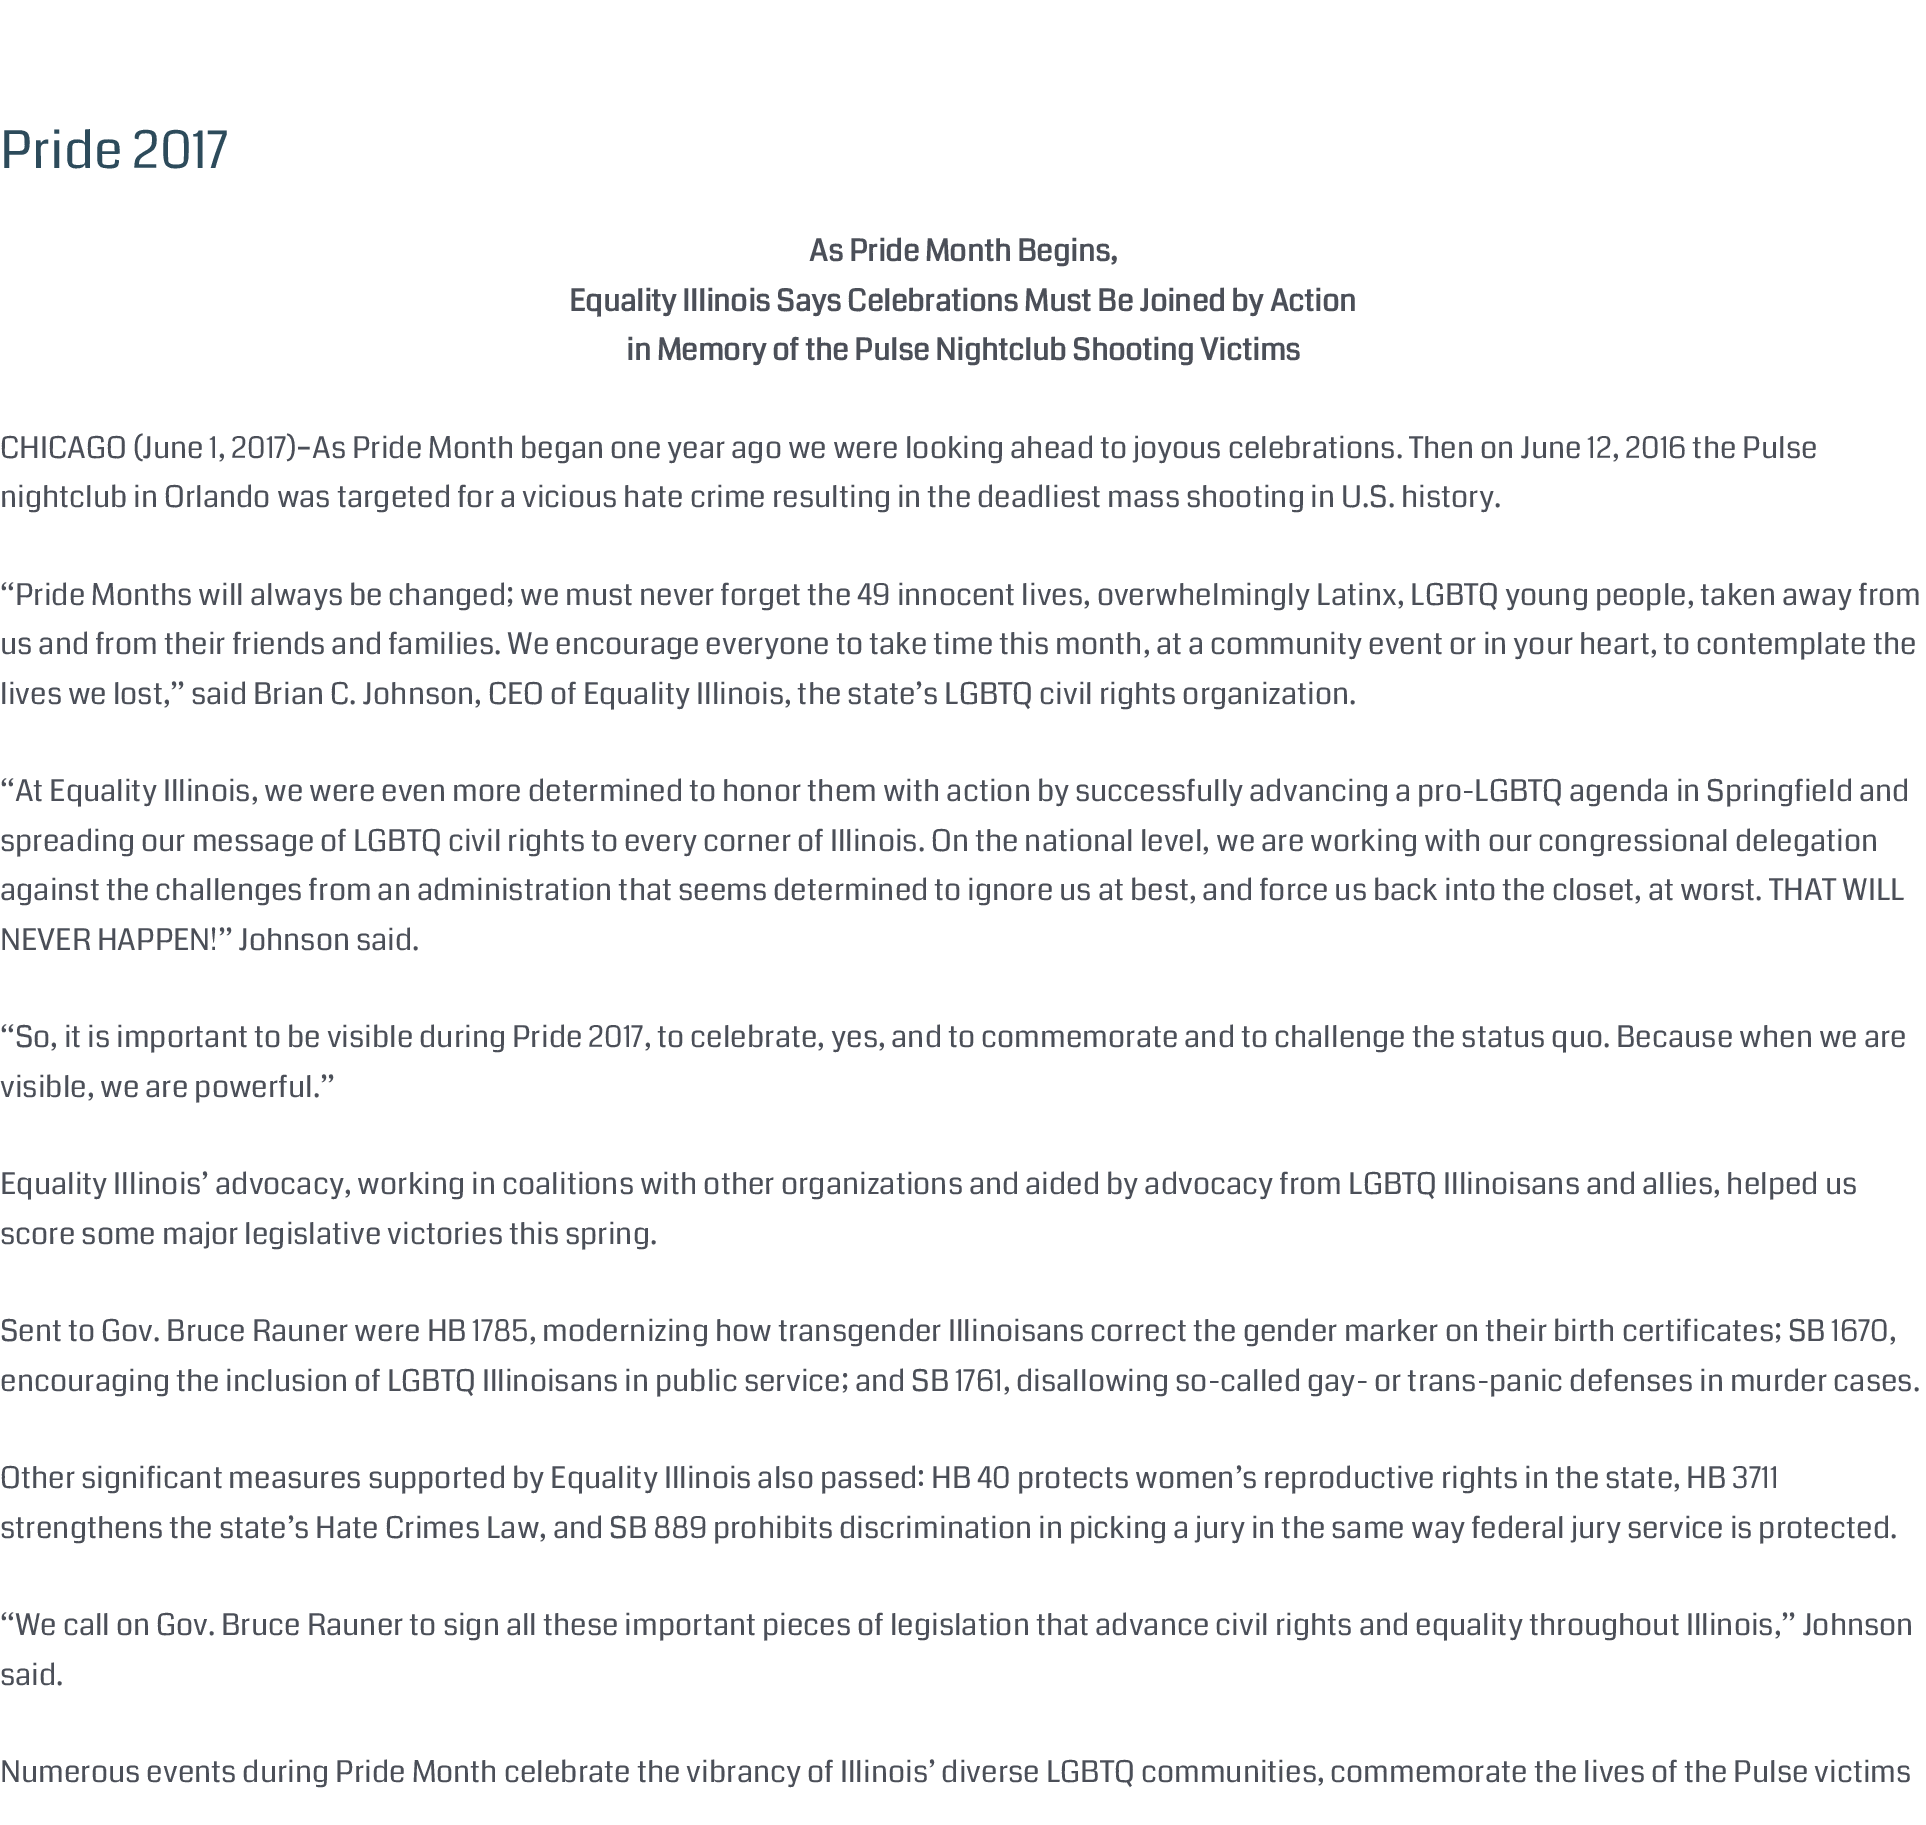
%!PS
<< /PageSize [1926 1825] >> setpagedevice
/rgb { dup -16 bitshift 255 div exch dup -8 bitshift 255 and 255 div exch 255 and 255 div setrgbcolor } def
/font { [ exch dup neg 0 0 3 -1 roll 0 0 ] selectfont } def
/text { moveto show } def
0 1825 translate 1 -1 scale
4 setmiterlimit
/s1 { /Coda-Regular 52 font 16#2D4B5B rgb } def
/s2 { /Coda-Bold 30 font 16#4B4F58 rgb } def
/s3 { /Coda-Regular 30 font 16#4B4F58 rgb } def
16#FFFFFF rgb
0 0 1926 1825 rectfill
s1
(Pride 2017) 0 168 text
s2
(As Pride Month Begins,) 809 261 text
(Equality Illinois Says Celebrations Must Be Joined by Action) 569 311 text
(in Memory of the Pulse Nightclub Shooting Victims) 626 360 text
s3
(CHICAGO \(June 1, 2017\)–As Pride Month began one year ago we were looking ahead to joyous celebrations. Then on June 12, 2016 the Pulse) 0 458 text
(nightclub in Orlando was targeted for a vicious hate crime resulting in the deadliest mass shooting in U.S. history.) 0 507 text
(“Pride Months will always be changed; we must never forget the 49 innocent lives, overwhelmingly Latinx, LGBTQ young people, taken away from) 0 605 text
(us and from their friends and families. We encourage everyone to take time this month, at a community event or in your heart, to contemplate the) 0 654 text
(lives we lost,” said Brian C. Johnson, CEO of Equality Illinois, the state’s LGBTQ civil rights organization.) 0 704 text
(“At Equality Illinois, we were even more determined to honor them with action by successfully advancing a pro-LGBTQ agenda in Springfield and) 0 801 text
(spreading our message of LGBTQ civil rights to every corner of Illinois. On the national level, we are working with our congressional delegation) 0 851 text
(against the challenges from an administration that seems determined to ignore us at best, and force us back into the closet, at worst. THAT WILL) 0 900 text
(NEVER HAPPEN!” Johnson said.) 0 950 text
(“So, it is important to be visible during Pride 2017, to celebrate, yes, and to commemorate and to challenge the status quo. Because when we are) 0 1047 text
(visible, we are powerful.”) 0 1097 text
(Equality Illinois’ advocacy, working in coalitions with other organizations and aided by advocacy from LGBTQ Illinoisans and allies, helped us) 0 1194 text
(score some major legislative victories this spring.) 0 1244 text
(Sent to Gov. Bruce Rauner were HB 1785, modernizing how transgender Illinoisans correct the gender marker on their birth certificates; SB 1670,) 0 1341 text
(encouraging the inclusion of LGBTQ Illinoisans in public service; and SB 1761, disallowing so-called gay- or trans-panic defenses in murder cases.) 0 1391 text
(Other significant measures supported by Equality Illinois also passed: HB 40 protects women’s reproductive rights in the state, HB 3711) 0 1488 text
(strengthens the state’s Hate Crimes Law, and SB 889 prohibits discrimination in picking a jury in the same way federal jury service is protected.) 0 1538 text
(“We call on Gov. Bruce Rauner to sign all these important pieces of legislation that advance civil rights and equality throughout Illinois,” Johnson) 0 1635 text
(said.) 0 1685 text
(Numerous events during Pride Month celebrate the vibrancy of Illinois’ diverse LGBTQ communities, commemorate the lives of the Pulse victims) 0 1782 text
showpage
